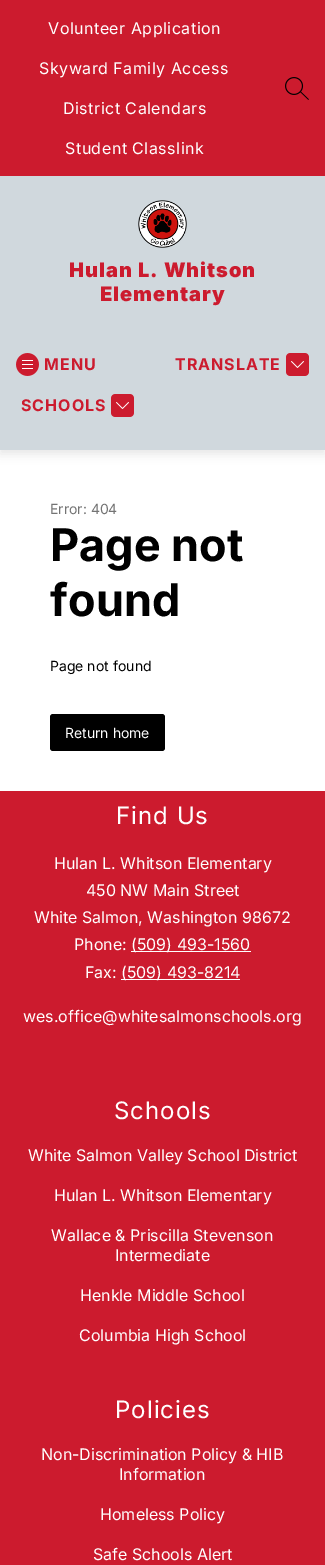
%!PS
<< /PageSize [325 1565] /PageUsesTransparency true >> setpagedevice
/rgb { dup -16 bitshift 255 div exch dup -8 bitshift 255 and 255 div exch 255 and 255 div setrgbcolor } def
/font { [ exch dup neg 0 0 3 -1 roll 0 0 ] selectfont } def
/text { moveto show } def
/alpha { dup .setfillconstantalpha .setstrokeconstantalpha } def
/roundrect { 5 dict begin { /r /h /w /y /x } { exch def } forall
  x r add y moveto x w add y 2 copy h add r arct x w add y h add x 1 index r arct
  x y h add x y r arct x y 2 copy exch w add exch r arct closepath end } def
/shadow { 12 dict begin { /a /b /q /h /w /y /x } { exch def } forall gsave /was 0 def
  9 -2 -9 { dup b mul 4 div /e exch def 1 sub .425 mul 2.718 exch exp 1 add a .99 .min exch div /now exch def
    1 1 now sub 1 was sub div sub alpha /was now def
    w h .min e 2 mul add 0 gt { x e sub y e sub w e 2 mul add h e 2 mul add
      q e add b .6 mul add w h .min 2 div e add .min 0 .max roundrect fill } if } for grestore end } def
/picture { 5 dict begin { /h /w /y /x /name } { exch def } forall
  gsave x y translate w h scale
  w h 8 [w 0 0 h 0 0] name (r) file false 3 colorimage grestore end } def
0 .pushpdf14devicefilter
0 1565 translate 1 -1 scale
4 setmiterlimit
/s1 { /Inter-Regular 14 font 16#747474 rgb } def
/s2 { /Inter-Bold 45 font 16#000000 rgb } def
/s3 { /Inter-Regular 14 font 16#000000 rgb } def
/s4 { /Inter-Regular 14 font 16#FFFFFF rgb } def
/s5 { /Inter-Regular 16 font 16#FFFFFF rgb } def
16#FFFFFF rgb
0 0 325 1565 rectfill
16#000000 rgb
0 4 325 450 0 5 0.1 shadow
16#D0D8DD rgb
0 176 325 274 rectfill
16#CC1B2E rgb
0 0 325 176 rectfill
/Inter-Regular 16 font
16#FFFFFF rgb
48 34 moveto 0.5 0 (Volunteer Application) ashow
39 74 moveto 0.5 0 (Skyward Family Access) ashow
63 114 moveto 0.5 0 (District Calendars) ashow
65 154 moveto 0.5 0 (Student Classlink) ashow
(pic1.raw) 285 77 24 23 picture
(pic2.raw) 138 200 49 48 picture
/Inter-Black 20 font
16#CC1B2E rgb
69 277 moveto 1 0 (Hulan L. Whitson) ashow
100 301 moveto 1 0 (Elementary) ashow
(pic3.raw) 16 353 23 23 picture
/Inter-Bold 16 font
44 370 moveto 1 0 (MENU) ashow
21 411 moveto 1 0 (SCHOOLS) ashow
(pic4.raw) 111 394 23 23 picture
175 370 moveto 1 0 (TRANSLATE) ashow
(pic4.raw) 286 353 23 23 picture
s1
(Error: 404) 50 514 text
s2
(Page not) 50 561 text
(found) 50 616 text
s3
(Page not found) 50 671 text
50 714 115 37 3 roundrect fill
s4
(Return home) 65 738 text
16#CC1B2E rgb
0 791 325 774 rectfill
/Inter-Regular 24 font
16#FFFFFF rgb
116 824 moveto 1 0 (Find Us) ashow
s5
(Hulan L. Whitson Elementary) 54 869 text
(450 NW Main Street) 86 896 text
(White Salmon, Washington 98672) 34 923 text
(Phone:) 74 950 text
131 951 120 1 rectfill
(\(509\) 493-1560) 131 950 text
(Fax:) 85 978 text
121 979 119 1 rectfill
(\(509\) 493-8214) 121 978 text
(wes.office@whitesalmonschools.org) 23 1022 text
/Inter-Regular 24 font
114 1119 moveto 1 0 (Schools) ashow
s5
(White Salmon Valley School District) 28 1161 text
(Hulan L. Whitson Elementary) 54 1201 text
(Wallace & Priscilla Stevenson) 51 1241 text
(Intermediate) 115 1261 text
(Henkle Middle School) 80 1301 text
(Columbia High School) 79 1341 text
/Inter-Regular 24 font
115 1418 moveto 1 0 (Policies) ashow
s5
(Non-Discrimination Policy & HIB) 41 1460 text
(Information) 119 1480 text
(Homeless Policy) 100 1520 text
(Safe Schools Alert) 93 1560 text
.poppdf14devicefilter showpage
